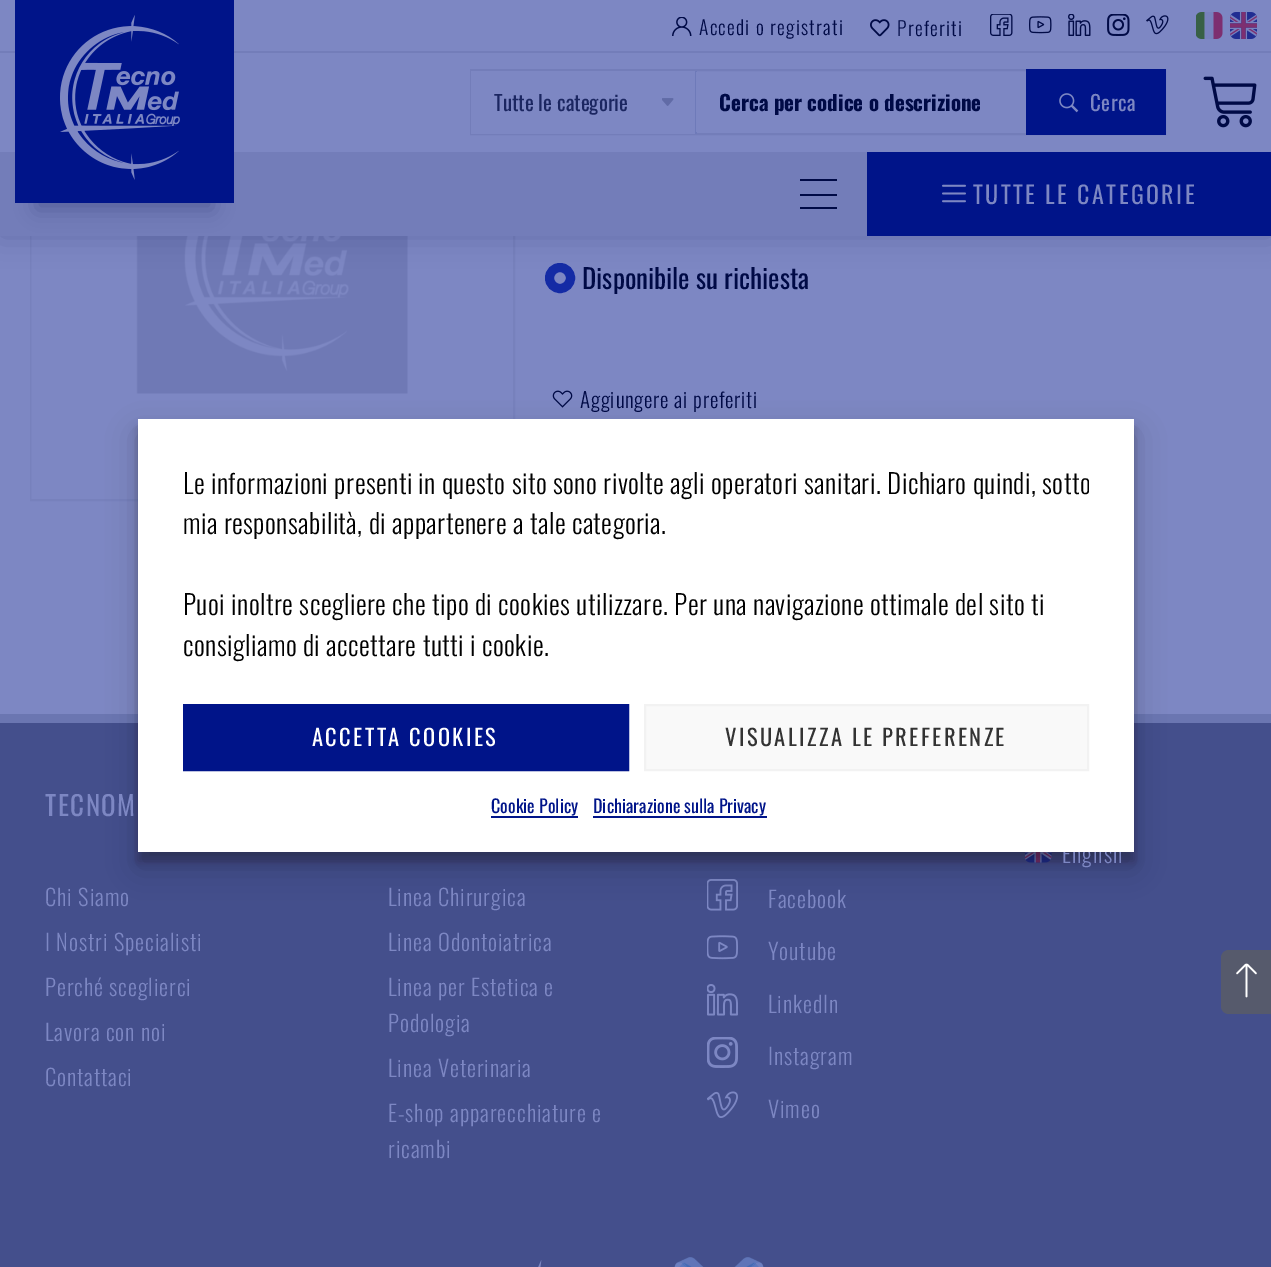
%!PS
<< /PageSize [1271 1267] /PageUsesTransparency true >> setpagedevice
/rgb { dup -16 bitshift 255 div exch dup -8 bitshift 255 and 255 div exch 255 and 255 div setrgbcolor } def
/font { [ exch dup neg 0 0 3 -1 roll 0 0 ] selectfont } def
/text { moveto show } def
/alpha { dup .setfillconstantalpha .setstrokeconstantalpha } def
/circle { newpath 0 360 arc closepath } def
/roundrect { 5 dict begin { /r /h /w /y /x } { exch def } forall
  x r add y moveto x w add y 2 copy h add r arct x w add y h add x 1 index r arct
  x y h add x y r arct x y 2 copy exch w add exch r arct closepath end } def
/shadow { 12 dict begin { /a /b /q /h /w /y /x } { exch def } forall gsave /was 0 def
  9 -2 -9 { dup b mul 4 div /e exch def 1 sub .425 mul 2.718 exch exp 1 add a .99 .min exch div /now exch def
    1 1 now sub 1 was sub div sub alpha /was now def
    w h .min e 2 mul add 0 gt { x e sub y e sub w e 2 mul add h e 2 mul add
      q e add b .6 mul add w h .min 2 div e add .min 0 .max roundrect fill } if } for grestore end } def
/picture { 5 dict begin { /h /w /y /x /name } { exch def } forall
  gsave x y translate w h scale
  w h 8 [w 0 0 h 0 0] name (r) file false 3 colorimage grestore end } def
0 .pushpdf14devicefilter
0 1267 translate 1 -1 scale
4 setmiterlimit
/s1 { /Oswald-Regular 21 font 16#1B2661 rgb } def
/s2 { /Oswald-Bold 21 font 16#000A46 rgb } def
/s3 { /Oswald-Regular 27 font 16#000A46 rgb } def
/s4 { /Oswald-Regular 18 font 16#001489 rgb } def
16#7D87C3 rgb
0 0 1271 1267 rectfill
16#7781BC rgb
2 setlinewidth
31 18 483 482 rectstroke
(pic15.raw) 31 236 482 263 picture
16#142BA5 rgb
9 setlinewidth
560 278 10.5 circle stroke
16#000A46 rgb
0 0 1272 236 0 15 0.2 shadow
16#7D87C3 rgb
0 0 1271 152 rectfill
16#737DB9 rgb
0 51 1271 2 rectfill
(pic1.raw) 672 17 20 19 picture
/Oswald-Light 19.5 font
16#000A46 rgb
699 35 moveto 1.25 0 (Accedi o registrati) ashow
(pic2.raw) 870 19 20 18 picture
897 36 moveto 1.25 0 (Preferiti) ashow
(pic3.raw) 990 14 23 22 picture
(pic4.raw) 1029 16 23 18 picture
(pic5.raw) 1068 14 23 22 picture
(pic6.raw) 1107 14 23 22 picture
(pic7.raw) 1146 15 23 20 picture
(pic8.raw) 1196 12 27 27 picture
(pic9.raw) 1230 12 27 27 picture
16#737DB9 rgb
0 152 867 84 rectfill
16#000A46 rgb
36 42 177 168 0 10.5 0.25 shadow
16#001489 rgb
15 0 219 203 rectfill
(pic10.raw) 60 15 120 165 picture
16#737DB9 rgb
2 setlinewidth
471 70 694 64 rectstroke
16#7D87C3 rgb
471 71 224 63 rectfill
16#6E7AB9 rgb
695 71 2 63 rectfill
s1
(Tutte le categorie) 494 111 text
(pic11.raw) 662 98 12 8 picture
16#7D87C3 rgb
696 72 1 60 rectfill
s2
(Cerca per codice o descrizione) 719 111 text
16#001489 rgb
1026 69 140 66 rectfill
(pic12.raw) 1059 93 20 20 picture
/Oswald-Regular 21 font
16#7D87C3 rgb
1090 111 moveto 0.45 0 (Cerca) ashow
(pic13.raw) 1203 76 54 52 picture
16#000A46 rgb
800 179 37 2 rectfill
800 194 37 2 rectfill
800 207 37 2 rectfill
16#001489 rgb
867 152 404 84 rectfill
(pic14.raw) 942 184 24 19 picture
/Oswald-Regular 24 font
16#7D87C3 rgb
973 204 moveto 2.4 0 (TUTTE LE CATEGORIE) ashow
s3
(Disponibile su richiesta) 582 289 text
(pic16.raw) 552 390 21 18 picture
/Oswald-Light 21 font
580 408 moveto 0.75 0 (Aggiungere ai preferiti) ashow
16#6B76B1 rgb
0 714 1271 9 rectfill
16#444F8C rgb
0 723 1271 544 rectfill
(pic17.raw) 1025 852 27 11 picture
16#000000 rgb
138 428 996 433 0 4.5 0.23 shadow
(pic18.raw) 707 879 31 32 picture
138 434 996 433 0 15 0.19 shadow
/Oswald-Light 22.5 font
16#7D87C3 rgb
1062 863 moveto 0.9 0 (English) ashow
16#FFFFFF rgb
138 419 996 433 rectfill
gsave
183 464 906 210 rectclip
/Oswald-Light 27 font
16#000000 rgb
183 494 moveto 0.45 0 (Le informazioni presenti in questo sito sono rivolte agli operatori sanitari. Dichiaro quindi, sotto) ashow
grestore
/Oswald-Light 27 font
16#000000 rgb
183 534 moveto 0.45 0 (mia responsabilità, di appartenere a tale categoria.) ashow
183 615 moveto 0.45 0 (Puoi inoltre scegliere che tipo di cookies utilizzare. Per una navigazione ottimale del sito ti) ashow
183 656 moveto 0.45 0 (consigliamo di accettare tutti i cookie.) ashow
16#001489 rgb
184 705 moveto 628 705 lineto 628 770 lineto 184 770 lineto closepath gsave fill grestore
stroke
/Oswald-Regular 22.5 font
16#FFFFFF rgb
312 746 moveto 2.4 0 (ACCETTA COOKIES) ashow
16#F9F9F9 rgb
645 705 moveto 1088 705 lineto 1088 770 lineto 645 770 lineto closepath gsave fill grestore
16#F2F2F2 rgb
stroke
16#333333 rgb
725 746 moveto 2.4 0 (VISUALIZZA LE PREFERENZE) ashow
s4
(Cookie Policy) 491 813 text
491 816 87 2 rectfill
(Dichiarazione sulla Privacy) 593 813 text
593 816 174 2 rectfill
/Oswald-Regular 27 font
16#7D87C3 rgb
45 816 moveto 1.5 0 (TECNOM) ashow
/Oswald-Light 22.5 font
45 906 moveto 0.9 0 (Chi Siamo) ashow
45 951 moveto 0.9 0 (I Nostri Specialisti) ashow
45 996 moveto 0.9 0 (Perché sceglierci) ashow
45 1041 moveto 0.9 0 (Lavora con noi) ashow
45 1086 moveto 0.9 0 (Contattaci) ashow
388 906 moveto 0.9 0 (Linea Chirurgica) ashow
388 951 moveto 0.9 0 (Linea Odontoiatrica) ashow
388 996 moveto 0.9 0 (Linea per Estetica e) ashow
388 1032 moveto 0.9 0 (Podologia) ashow
388 1077 moveto 0.9 0 (Linea Veterinaria) ashow
388 1122 moveto 0.9 0 (E-shop apparecchiature e) ashow
388 1158 moveto 0.9 0 (ricambi) ashow
768 908 moveto 0.9 0 (Facebook) ashow
(pic19.raw) 707 935 31 25 picture
768 960 moveto 0.9 0 (Youtube) ashow
(pic20.raw) 707 984 31 32 picture
768 1013 moveto 0.9 0 (LinkedIn) ashow
(pic21.raw) 707 1037 31 31 picture
768 1065 moveto 0.9 0 (Instagram) ashow
(pic22.raw) 707 1091 31 27 picture
768 1118 moveto 0.9 0 (Vimeo) ashow
(pic23.raw) 538 1260 4 7 picture
(pic24.raw) 674 1257 90 10 picture
16#565A6C rgb
1229 950 moveto 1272 950 lineto 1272 1014 lineto 1229 1014 lineto 1224.5 1014 1221 1010.5 1221 1006 curveto 1221 958 lineto 1221 953.5 1224.5 950 1229 950 curveto closepath fill
(pic25.raw) 1236 963 21 35 picture
.poppdf14devicefilter showpage
